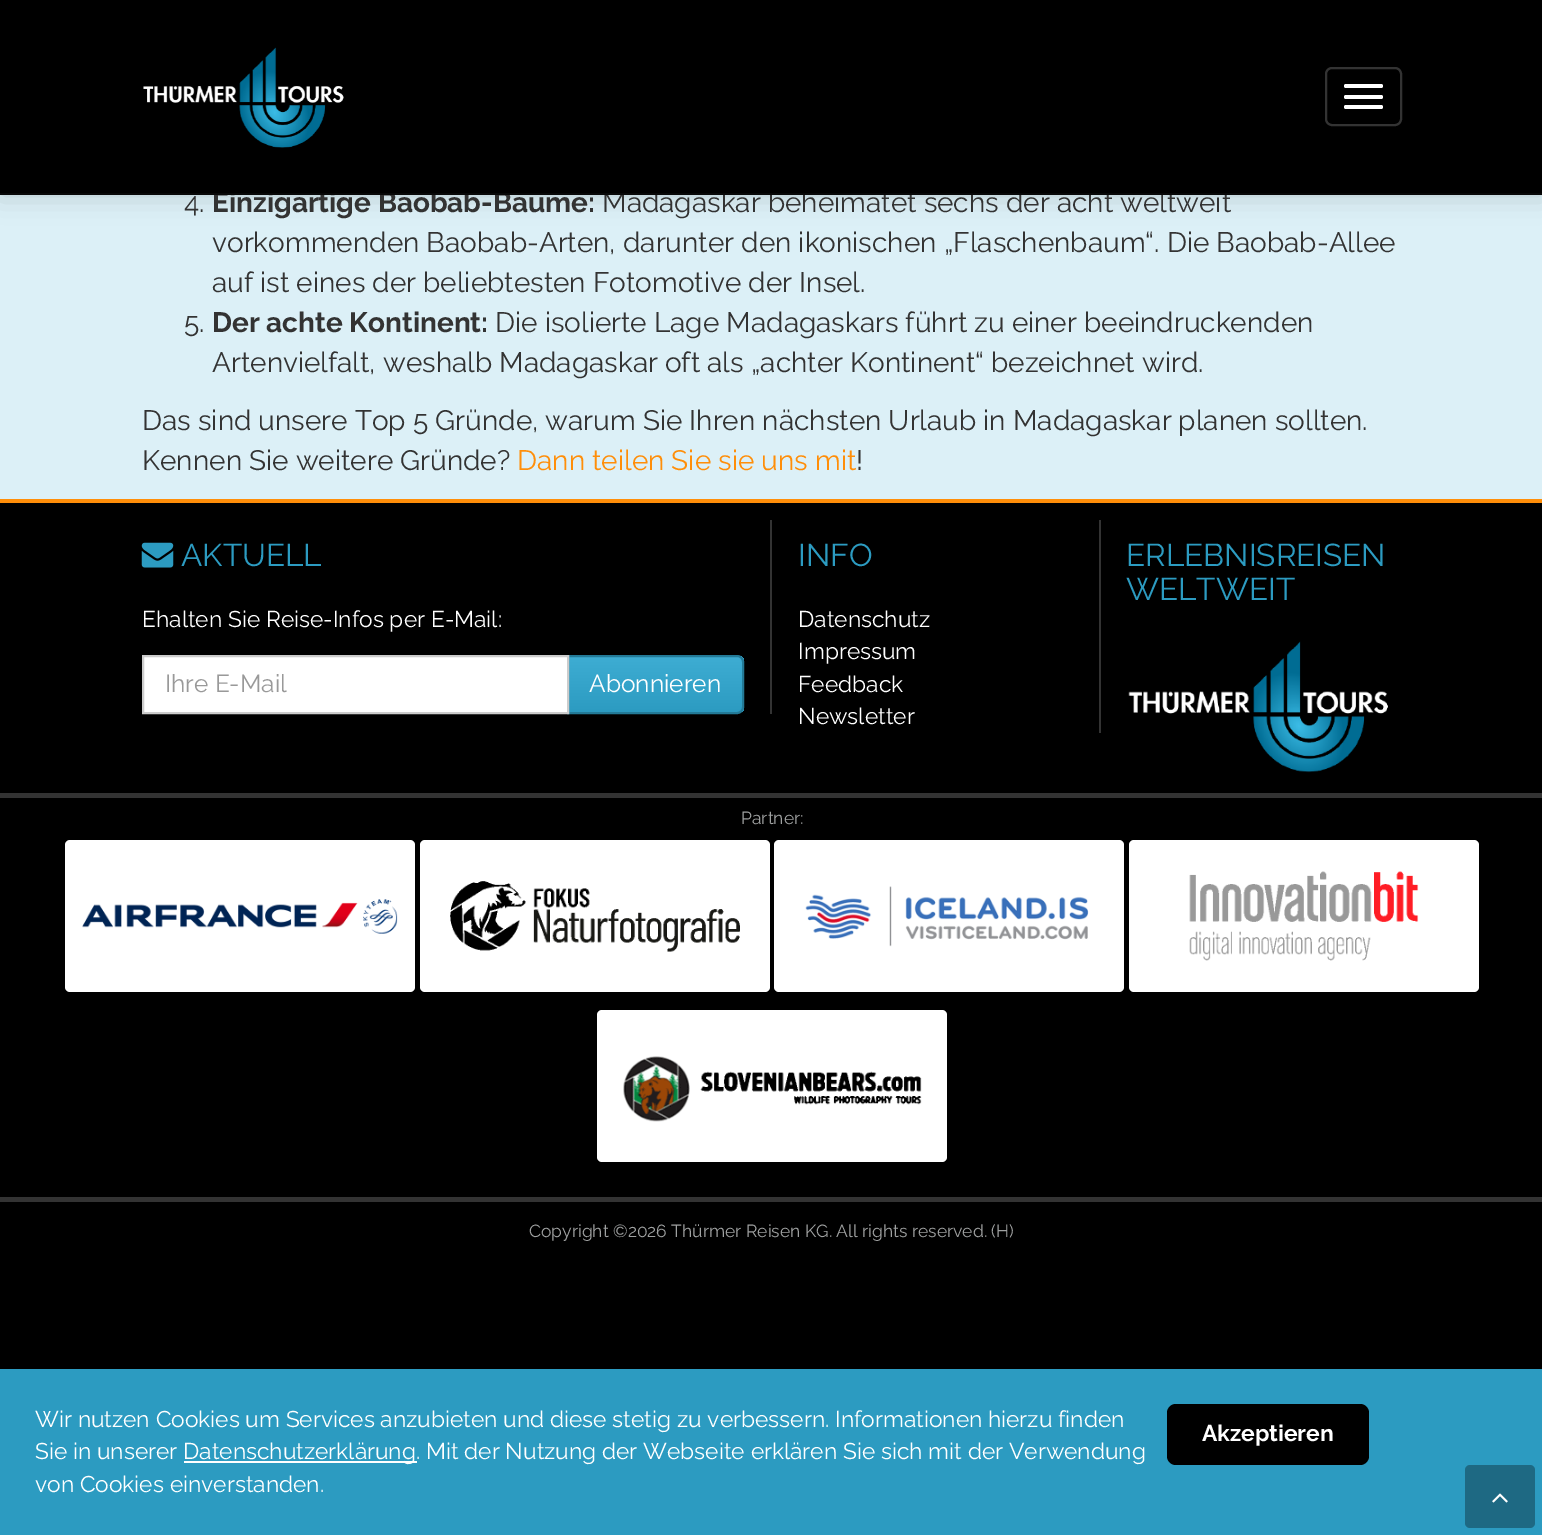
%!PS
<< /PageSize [1542 1535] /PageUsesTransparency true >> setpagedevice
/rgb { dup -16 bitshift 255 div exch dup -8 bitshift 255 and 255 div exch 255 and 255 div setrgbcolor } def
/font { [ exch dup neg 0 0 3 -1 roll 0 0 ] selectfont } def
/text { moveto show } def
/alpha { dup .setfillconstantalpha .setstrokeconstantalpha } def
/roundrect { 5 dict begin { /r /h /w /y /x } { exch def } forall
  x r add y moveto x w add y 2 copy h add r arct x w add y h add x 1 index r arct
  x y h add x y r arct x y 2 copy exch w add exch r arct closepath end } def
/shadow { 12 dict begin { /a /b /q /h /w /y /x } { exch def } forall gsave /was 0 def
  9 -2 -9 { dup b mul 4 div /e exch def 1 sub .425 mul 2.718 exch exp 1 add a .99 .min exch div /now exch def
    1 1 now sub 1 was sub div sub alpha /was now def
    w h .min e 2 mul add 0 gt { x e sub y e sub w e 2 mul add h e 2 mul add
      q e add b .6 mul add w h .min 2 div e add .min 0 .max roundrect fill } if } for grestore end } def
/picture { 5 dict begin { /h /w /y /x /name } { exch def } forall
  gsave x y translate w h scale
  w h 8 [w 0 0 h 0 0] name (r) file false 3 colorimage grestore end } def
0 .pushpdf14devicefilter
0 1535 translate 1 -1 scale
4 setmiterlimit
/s1 { /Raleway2-Thin 28 font 16#333333 rgb } def
/s2 { /Raleway-Thin 28 font 16#333333 rgb } def
/s3 { /Raleway-Thin 28 font 16#FF8E09 rgb } def
/s4 { /Raleway-Thin 31.5 font 16#2C9BC1 rgb } def
/s5 { /Raleway-Thin 22.75 font 16#FFFFFF rgb } def
/s6 { /Raleway-Thin 24.5 font 16#999999 rgb } def
/s7 { /Raleway-Thin 24.5 font 16#FFFFFF rgb } def
/s8 { /Raleway-Thin 17.5 font 16#9FA1A1 rgb } def
/s9 { /Raleway2-Thin 22.75 font 16#FFFFFF rgb } def
16#DCF0F7 rgb
0 0 1542 1535 rectfill
16#000000 rgb
0 0 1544 194 0 14 0.18 shadow
s1
(Einzigartige Baobab-Bäume:) 212 212 text
s2
(Madagaskar beheimatet sechs der acht weltweit) 602 212 text
16#000000 rgb
0 0 1542 193 rectfill
16#080808 rgb
0 193 1542 2 rectfill
(pic1.raw) 143 47 201 101 picture
16#333333 rgb
2 setlinewidth
1326 68 75 57 6 roundrect stroke
16#FFFFFF rgb
1344 84 39 4 2 roundrect fill
1344 95 39 4 2 roundrect fill
1344 105 39 4 2 roundrect fill
s2
(4.) 184 212 text
(vorkommenden Baobab-Arten, darunter den ikonischen „Flaschenbaum“. Die Baobab-Allee) 212 252 text
(auf ist eines der beliebtesten Fotomotive der Insel.) 212 292 text
(5.) 184 332 text
s1
(Der achte Kontinent:) 212 332 text
s2
(Die isolierte Lage Madagaskars führt zu einer beeindruckenden) 495 332 text
(Artenvielfalt, weshalb Madagaskar oft als „achter Kontinent“ bezeichnet wird.) 212 372 text
(Das sind unsere Top 5 Gründe, warum Sie Ihren nächsten Urlaub in Madagaskar planen sollten.) 142 430 text
(Kennen Sie weitere Gründe?) 142 470 text
s3
(Dann teilen Sie sie uns mit) 517 470 text
s2
(!) 856 470 text
16#000000 rgb
0 503 1542 290 rectfill
16#FF8E09 rgb
0 499 1542 4 rectfill
16#333333 rgb
770 520 2 194 rectfill
(pic2.raw) 141 542 33 26 picture
s4
(AKTUELL) 181 566 text
s5
(Ehalten Sie Reise-Infos per E-Mail:) 142 627 text
gsave
567 655 moveto 737 655 lineto 741 655 744 658 744 662 curveto 744 707 lineto 744 711 741 714 737 714 curveto 567 714 lineto closepath clip newpath
gsave 569 656 moveto 744 656 lineto 744 712 lineto 569 712 lineto closepath clip newpath
<< /ShadingType 2 /ColorSpace /DeviceRGB /Coords [655 656 655 712] /Extend [true true] /Function << /FunctionType 2 /Domain [0 1] /C0 [0.243 0.678 0.827] /C1 [0.173 0.608 0.757] /N 1 >> >> shfill grestore
grestore
16#237A97 rgb
568 656 moveto 737 656 lineto 740.5 656 743 658.5 743 662 curveto 743 707 lineto 743 710.5 740.5 713 737 713 curveto 568 713 lineto closepath stroke
16#FFFFFF rgb
143 656 moveto 568 656 lineto 568 713 lineto 143 713 lineto closepath gsave fill grestore
16#CCCCCC rgb
stroke
s6
(Ihre E-Mail) 165 692 text
s7
(Abonnieren) 589 692 text
16#333333 rgb
1099 520 2 213 rectfill
s4
(INFO) 798 566 text
s5
(Datenschutz) 798 627 text
(Impressum) 798 659 text
(Feedback) 798 692 text
(Newsletter) 798 724 text
s4
(ERLEBNISREISEN) 1126 566 text
(WELTWEIT) 1126 600 text
(pic3.raw) 1128 641 260 132 picture
16#000000 rgb
0 798 1542 399 rectfill
16#333333 rgb
0 793 1542 5 rectfill
s8
(Partner:) 741 824 text
16#FFFFFF rgb
65 840 350 152 5 roundrect fill
420 840 350 152 5 roundrect fill
774 840 350 152 5 roundrect fill
1129 840 350 152 5 roundrect fill
(pic4.raw) 82 899 316 35 picture
(pic5.raw) 450 881 290 71 picture
(pic6.raw) 805 886 284 61 picture
(pic7.raw) 1189 871 230 90 picture
597 1010 350 152 5 roundrect fill
(pic8.raw) 623 1056 299 66 picture
16#000000 rgb
0 1202 1542 167 rectfill
16#333333 rgb
0 1197 1542 5 rectfill
s8
(Copyright ©2026 Thürmer Reisen KG. All rights reserved. \(H\)) 529 1237 text
16#2C9BC1 rgb
0 1369 1542 166 rectfill
s5
(Wir nutzen Cookies um Services anzubieten und diese stetig zu verbessern. Informationen hierzu finden) 35 1427 text
(Sie in unserer) 35 1459 text
184 1461 233 2 rectfill
(Datenschutzerklärung. Mit der Nutzung der Webseite erklären Sie sich mit der Verwendung) 183 1459 text
(von Cookies einverstanden.) 35 1492 text
16#000000 rgb
1167 1404 202 61 9 roundrect fill
s9
(Akzeptieren) 1202 1441 text
16#1E6983 rgb
1465 1465 70 63 5 roundrect fill
(pic9.raw) 1492 1493 16 10 picture
.poppdf14devicefilter showpage
